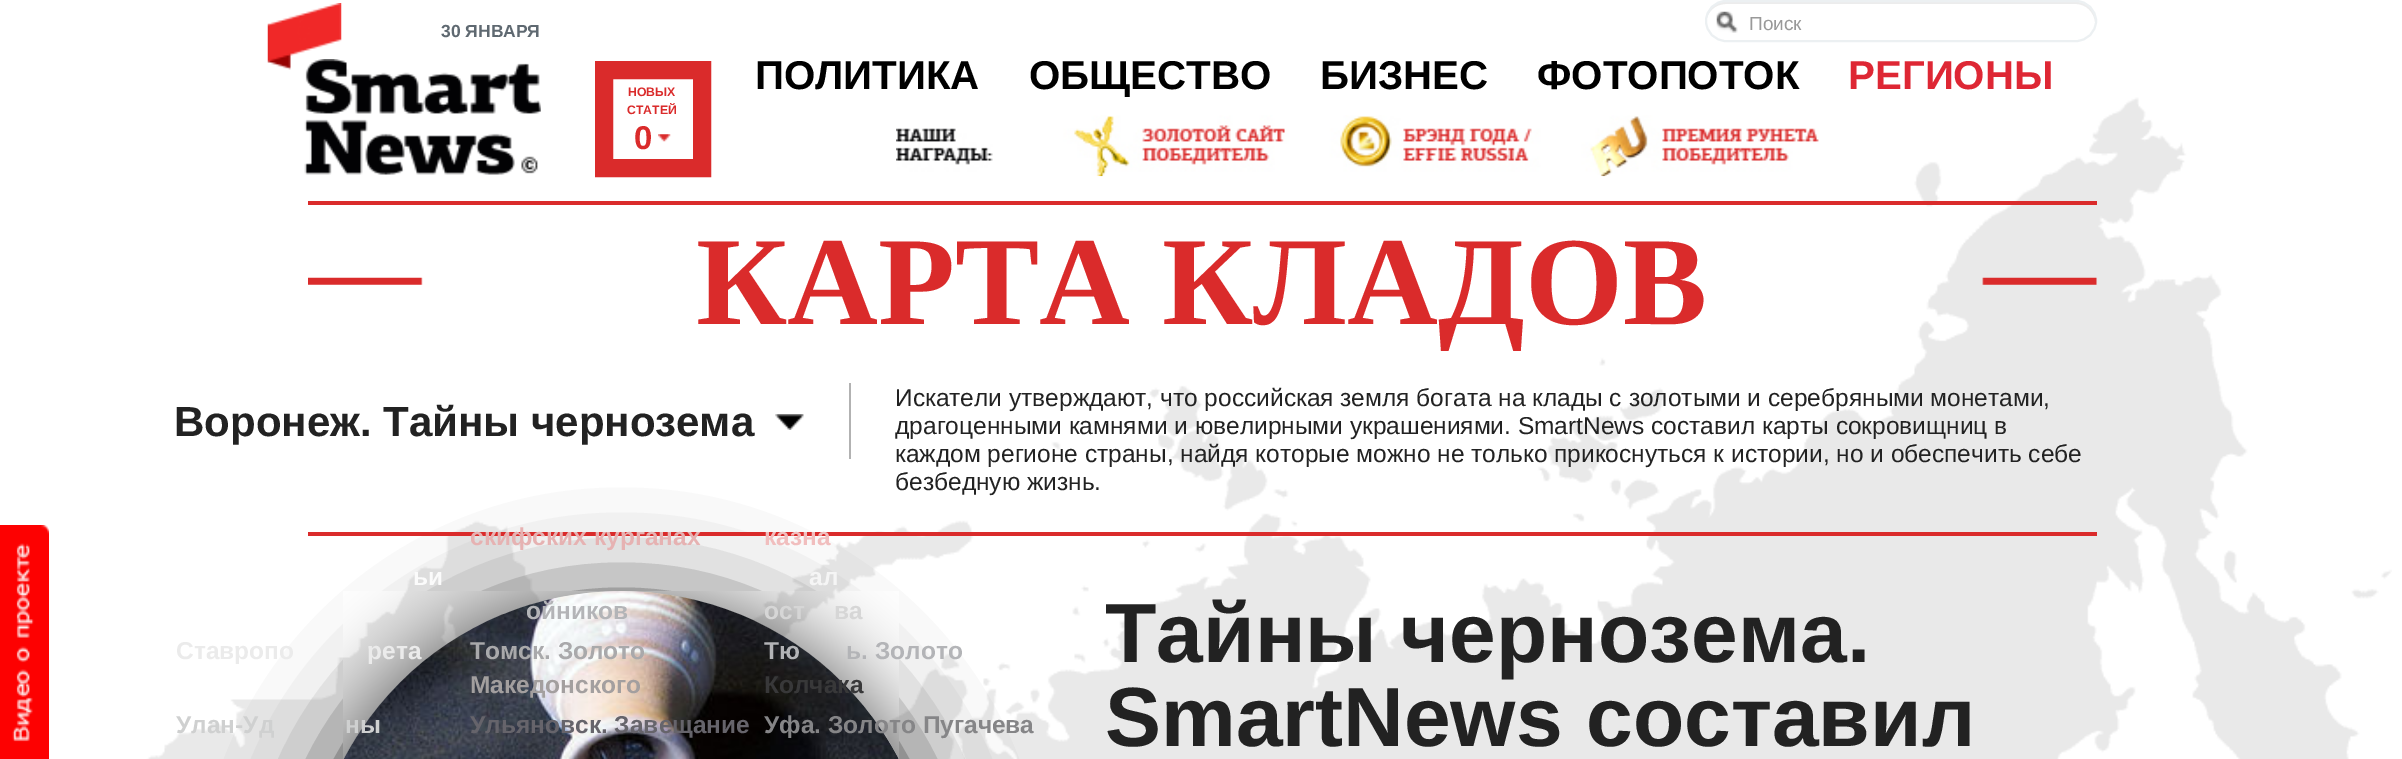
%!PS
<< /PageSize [2402 759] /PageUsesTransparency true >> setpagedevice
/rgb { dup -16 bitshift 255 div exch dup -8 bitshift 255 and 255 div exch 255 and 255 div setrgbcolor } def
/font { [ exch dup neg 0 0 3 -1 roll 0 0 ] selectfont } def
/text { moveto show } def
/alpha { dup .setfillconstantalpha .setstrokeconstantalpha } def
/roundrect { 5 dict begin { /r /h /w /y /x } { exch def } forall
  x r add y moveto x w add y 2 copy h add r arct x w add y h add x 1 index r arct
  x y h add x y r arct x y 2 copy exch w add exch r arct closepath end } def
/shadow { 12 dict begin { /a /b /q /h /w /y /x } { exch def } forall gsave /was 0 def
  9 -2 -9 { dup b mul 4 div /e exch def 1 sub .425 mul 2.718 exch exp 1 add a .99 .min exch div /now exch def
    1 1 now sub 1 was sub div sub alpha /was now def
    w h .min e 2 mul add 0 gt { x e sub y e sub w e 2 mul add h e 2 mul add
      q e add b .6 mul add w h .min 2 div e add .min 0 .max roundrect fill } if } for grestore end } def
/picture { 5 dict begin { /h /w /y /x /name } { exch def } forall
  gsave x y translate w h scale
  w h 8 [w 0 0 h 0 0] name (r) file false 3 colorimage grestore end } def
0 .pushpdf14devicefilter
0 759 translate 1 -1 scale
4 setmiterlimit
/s1 { /LiberationSans-Bold 17.5 font 16#5F6971 rgb } def
/s2 { /LiberationSans-Regular 19 font 16#999999 rgb } def
/s3 { /LiberationSans-Bold 40.25 font 16#000000 rgb } def
/s4 { /LiberationSans-Bold 40.25 font 16#DE2734 rgb } def
/s5 { /LiberationSans-Bold 12.25 font 16#DA2B2B rgb } def
/s6 { /LiberationSans-Bold 33 font 16#DA2B2B rgb } def
/s7 { /LiberationSerif-Bold 126 font 16#DA2B2B rgb } def
/s8 { /LiberationSans-Bold 42 font 16#222222 rgb } def
/s9 { /LiberationSans-Bold 24.5 font 16#E6B2B2 rgb } def
/s10 { /LiberationSans-Bold 24.5 font 16#F1BEBE rgb } def
/s11 { /LiberationSans-Bold 24.5 font 16#FBFBFB rgb } def
/s12 { /LiberationSans-Bold 24.5 font 16#F5F5F5 rgb } def
/s13 { /LiberationSans-Bold 24.5 font 16#D6D6D6 rgb } def
/s14 { /LiberationSans-Bold 24.5 font 16#B3B4B7 rgb } def
/s15 { /LiberationSans-Bold 24.5 font 16#EBEBEB rgb } def
/s16 { /LiberationSans-Bold 24.5 font 16#A9A9AB rgb } def
/s17 { /LiberationSans-Bold 24.5 font 16#A39F9F rgb } def
/s18 { /LiberationSans-Bold 24.5 font 16#383839 rgb } def
/s19 { /LiberationSans-Bold 24.5 font 16#CFD0D0 rgb } def
/s20 { /LiberationSans-Bold 24.5 font 16#66646B rgb } def
/s21 { /LiberationSans-Bold 24.5 font 16#858587 rgb } def
/s22 { /LiberationSans-Regular 24.5 font 16#222222 rgb } def
/s23 { /LiberationSans-Bold 84 font 16#222222 rgb } def
16#FFFFFF rgb
0 0 2402 759 rectfill
(pic1.raw) 0 97 2392 662 picture
(pic2.raw) 0 525 49 234 picture
(pic4.raw) 304 59 237 116 picture
(pic3.raw) 267 3 75 67 picture
s1
(30 ЯНВАРЯ) 441 37 text
(pic5.raw) 1716 11 22 22 picture
16#ECECEC rgb
1726 4 moveto 2076 4 lineto 2086 4 2094 12 2095 22 curveto 2096 11 2087 2 2076 2 curveto 1725 2 lineto 1714 2 1705 11 1706 22 curveto 1707 12 1715 4 1726 4 curveto closepath fill
16#ECF0F2 rgb
2 setlinewidth
1706 1 390 40 20 roundrect stroke
s2
(Поиск) 1749 30 text
s3
(ПОЛИТИКА) 755 89 text
(ОБЩЕСТВО) 1029 89 text
(БИЗНЕС) 1320 89 text
(ФОТОПОТОК) 1537 89 text
s4
(РЕГИОНЫ) 1848 89 text
16#DA2B2B rgb
18 setlinewidth
604 70 98 98 rectstroke
s5
(НОВЫХ) 628 96 text
(СТАТЕЙ) 627 114 text
s6
(0) 634 149 text
(pic6.raw) 658 134 13 8 picture
(pic7.raw) 896 115 923 62 picture
308 201 1789 4 rectfill
16#000000 rgb
308 600 627 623 313.5 50 0.75 shadow
16#DA2B2B rgb
308 532 1789 4 rectfill
(pic8.raw) 308 277 1789 8 picture
s7
(КАРТА КЛАДОВ) 696 324 text
16#B2B2B2 rgb
849 383 2 76 rectfill
(pic9.raw) 775 414 29 16 picture
s8
(Воронеж. Тайны чернозема) 174 436 text
s9
(скифских курганах) 470 545 text
s10
(казна) 764 545 text
s11
(ьи) 413 585 text
s12
(ал) 809 585 text
16#FFFFFF rgb
308 592 627 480 313 roundrect fill
(pic10.raw) 343 591 556 168 picture
s13
(ост) 764 619 text
(ва) 834 619 text
s14
(ойников) 526 619 text
s15
(Ставропо) 176 659 text
(рета) 367 659 text
s16
(Томск. Золото) 470 659 text
s17
(Македонского) 470 693 text
s14
(Тю) 764 659 text
(ь. Золото) 846 659 text
s18
(Колчака) 764 693 text
s19
(Улан-Уд) 176 733 text
(ны) 345 733 text
s20
(Ульяновск. Завещание) 470 733 text
s21
(Уфа. Золото Пугачева) 764 733 text
s22
(Искатели утверждают, что российская земля богата на клады с золотыми и серебряными монетами,) 895 406 text
(драгоценными камнями и ювелирными украшениями. SmartNews составил карты сокровищниц в) 895 434 text
(каждом регионе страны, найдя которые можно не только прикоснуться к истории, но и обеспечить себе) 895 462 text
(безбедную жизнь.) 895 490 text
s23
(Тайны чернозема.) 1105 662 text
(SmartNews составил) 1105 746 text
.poppdf14devicefilter showpage
